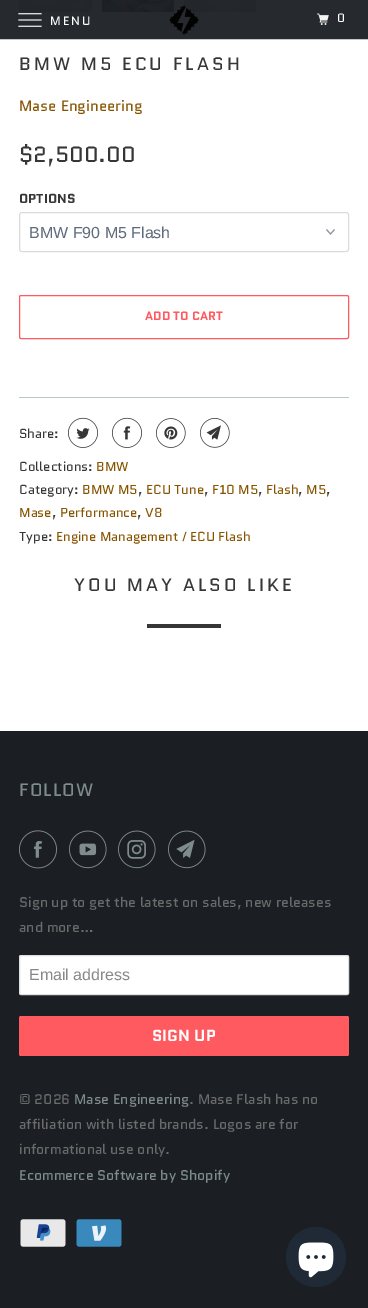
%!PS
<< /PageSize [368 1308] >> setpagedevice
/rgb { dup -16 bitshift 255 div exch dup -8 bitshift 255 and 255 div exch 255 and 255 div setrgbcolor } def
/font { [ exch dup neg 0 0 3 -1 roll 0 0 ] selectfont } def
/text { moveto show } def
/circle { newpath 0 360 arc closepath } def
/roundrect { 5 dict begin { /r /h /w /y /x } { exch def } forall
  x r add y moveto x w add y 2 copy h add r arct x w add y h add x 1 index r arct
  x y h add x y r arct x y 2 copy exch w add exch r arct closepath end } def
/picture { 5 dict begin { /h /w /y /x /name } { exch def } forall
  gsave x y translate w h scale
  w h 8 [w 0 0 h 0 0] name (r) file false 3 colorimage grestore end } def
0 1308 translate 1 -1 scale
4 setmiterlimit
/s1 { /Quantico-Regular 15 font 16#875400 rgb } def
/s2 { /Quantico-Regular 22 font 16#363636 rgb } def
/s3 { /Quantico-Bold 13 font 16#363636 rgb } def
/s4 { /LiberationSans-Regular 16 font 16#5F6A7D rgb } def
/s5 { /Quantico-Bold 12 font 16#FF5A5F rgb } def
/s6 { /Quantico-Regular 13 font 16#363636 rgb } def
/s7 { /Quantico-Regular 13 font 16#875400 rgb } def
/s8 { /Quantico-Regular 14 font 16#6B6B6B rgb } def
/s9 { /LiberationSans-Regular 16 font 16#888888 rgb } def
/s10 { /Quantico-Bold 16 font 16#FFFFFF rgb } def
/s11 { /Quantico-Regular 14 font 16#7F8C8D rgb } def
16#FFFFFF rgb
0 0 368 1308 rectfill
16#BCC9C9 rgb
0 39 368 1 rectfill
16#262A2E rgb
0 0 368 39 rectfill
(pic1.raw) 18 13 24 14 picture
/Quantico-Regular 12 font
16#FFFFFF rgb
50 25 moveto 2 0 (MENU) ashow
(pic5.raw) 102 0 72 12 picture
(pic6.raw) 184 0 72 12 picture
(pic2.raw) 169 5 30 30 picture
(pic3.raw) 317 13 12 12 picture
337 22 moveto 2 0 (0) ashow
(pic4.raw) 19 0 73 12 picture
/Quantico-Regular 18 font
16#363636 rgb
19 70 moveto 3 0 (BMW M5 ECU FLASH) ashow
s1
(Mase Engineering) 19 111 text
s2
($2,500.00) 19 162 text
s3
(OPTIONS) 19 203 text
(pic7.raw) 326 229 9 6 picture
16#D9DBDC rgb
19.5 212.5 329 39 2.5 roundrect stroke
s4
(BMW F90 M5 Flash) 29 238 text
16#FF5A5F rgb
19.5 295.5 329 43 1.5 roundrect stroke
s5
(ADD TO CART) 145 320 text
16#B8C6C6 rgb
19 397 330 1 rectfill
s6
(Share:) 19 438 text
(pic8.raw) 68 417 30 31 picture
(pic9.raw) 112 417 30 31 picture
(pic10.raw) 156 418 30 30 picture
(pic11.raw) 200 418 30 30 picture
(Collections:) 19 471 text
s7
(BMW) 96 471 text
s6
(Category:) 19 494 text
s7
(BMW M5) 82 494 text
s6
(,) 138 494 text
s7
(ECU Tune) 146 494 text
s6
(,) 204 494 text
s7
(F10 M5) 212 494 text
s6
(,) 258 494 text
s7
(Flash) 266 494 text
s6
(,) 298 494 text
s7
(M5) 306 494 text
s6
(,) 326 494 text
s7
(Mase) 19 517 text
s6
(,) 52 517 text
s7
(Performance) 60 517 text
s6
(,) 137 517 text
s7
(V8) 145 517 text
s6
(Type:) 19 541 text
s7
(Engine Management / ECU Flash) 56 541 text
/Quantico-Regular 18 font
16#363636 rgb
74 591 moveto 3 0 (YOU MAY ALSO LIKE) ashow
147 624 74 4 rectfill
16#1B1F23 rgb
0 731 368 577 rectfill
16#7F8C8D rgb
19 796 moveto 1 0 (FOLLOW) ashow
(pic12.raw) 19 830 38 39 picture
(pic13.raw) 69 830 38 39 picture
(pic14.raw) 118 830 38 39 picture
(pic15.raw) 168 830 38 39 picture
s8
(Sign up to get the latest on sales, new releases) 19 907 text
(and more…) 19 932 text
16#FFFFFF rgb
19.5 955.5 329 39 1.5 roundrect gsave fill grestore
16#DFDFDF rgb
stroke
s9
(Email address) 29 980 text
16#FF5A5F rgb
19 1016 330 40 2 roundrect fill
s10
(SIGN UP) 152 1041 text
s8
(© 2026) 19 1104 text
s11
(Mase Engineering) 74 1104 text
s8
(. Mase Flash has no) 189 1104 text
(affiliation with listed brands. Logos are for) 19 1129 text
(informational use only.) 19 1154 text
s11
(Ecommerce Software by Shopify) 19 1180 text
(pic16.raw) 20 1219 46 28 picture
(pic17.raw) 76 1219 46 28 picture
16#202A36 rgb
316 1257 30 circle fill
(pic18.raw) 298 1242 36 36 picture
showpage
